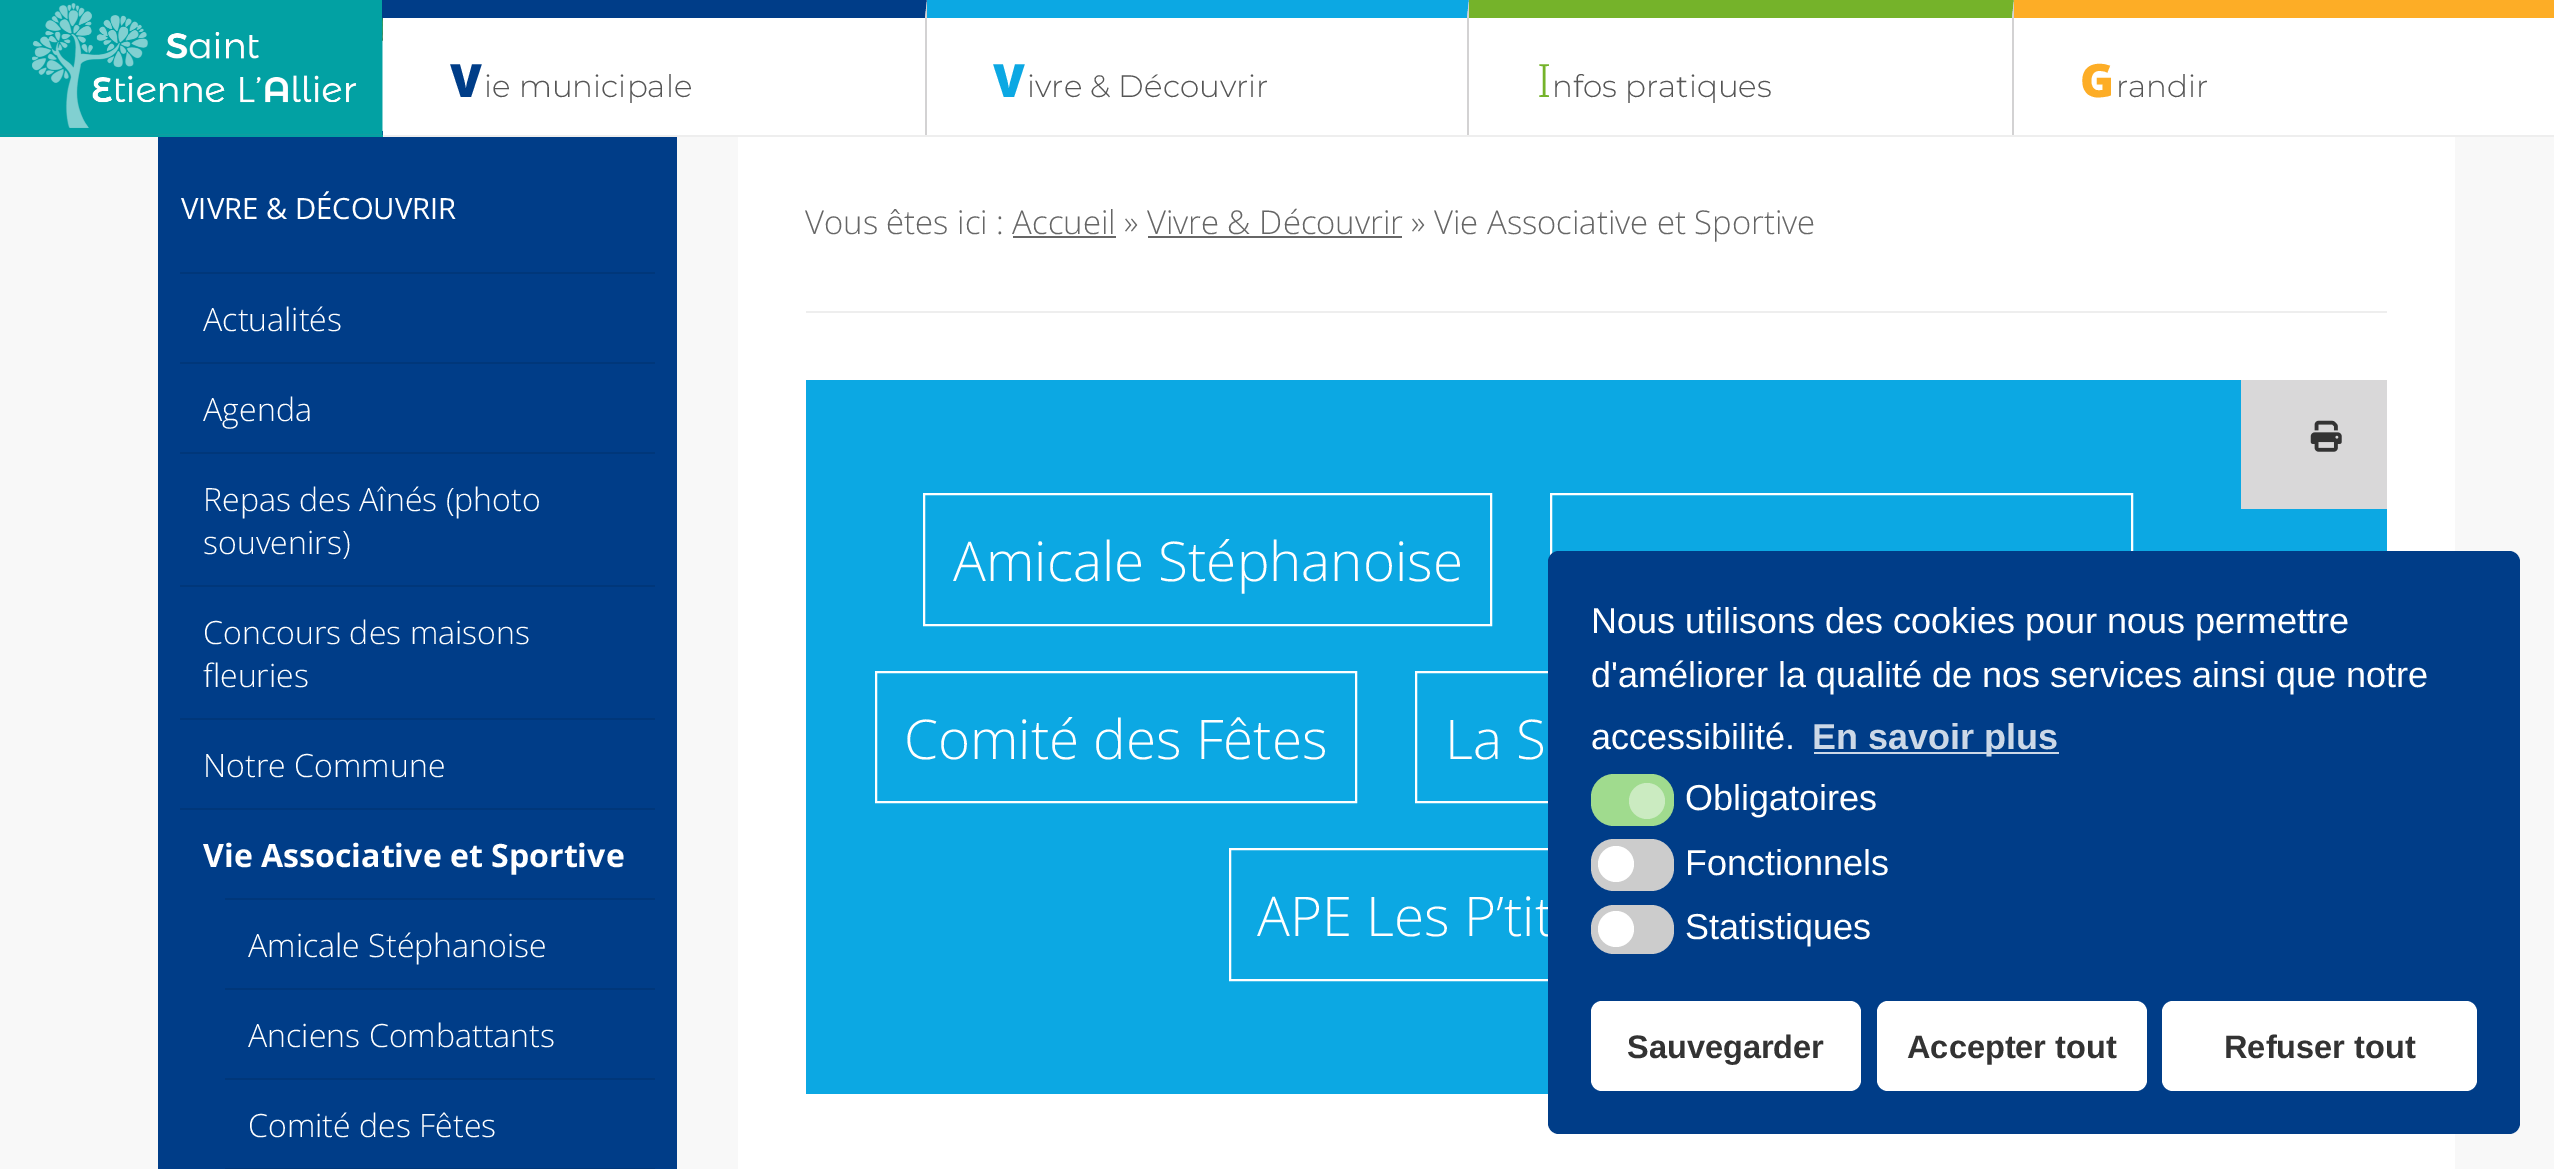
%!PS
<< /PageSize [2554 1169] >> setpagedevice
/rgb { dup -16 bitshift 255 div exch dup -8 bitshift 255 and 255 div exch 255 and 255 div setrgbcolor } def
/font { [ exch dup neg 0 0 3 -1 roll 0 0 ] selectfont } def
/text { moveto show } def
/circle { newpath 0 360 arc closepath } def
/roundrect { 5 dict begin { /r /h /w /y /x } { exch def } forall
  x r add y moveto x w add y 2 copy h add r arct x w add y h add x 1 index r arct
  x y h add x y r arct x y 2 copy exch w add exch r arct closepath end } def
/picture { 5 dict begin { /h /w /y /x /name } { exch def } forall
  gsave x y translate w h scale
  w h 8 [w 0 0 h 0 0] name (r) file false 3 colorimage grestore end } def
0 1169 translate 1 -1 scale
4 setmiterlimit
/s1 { /NotoSans-Black 46 font 16#003D88 rgb } def
/s2 { /Montserrat-Light 31 font 16#555555 rgb } def
/s3 { /NotoSans-Black 46 font 16#0CA8E3 rgb } def
/s4 { /NotoSans-Light 46 font 16#75B32A rgb } def
/s5 { /NotoSans-Black 46 font 16#FDAD26 rgb } def
/s6 { /OpenSans-Regular 29.25 font 16#FFFFFF rgb } def
/s7 { /OpenSans-Light 32.1 font 16#FFFFFF rgb } def
/s8 { /OpenSans-Bold 32.1 font 16#FFFFFF rgb } def
/s9 { /OpenSans-Light 32.8 font 16#666666 rgb } def
/s10 { /OpenSans-Light 54.75 font 16#FFFFFF rgb } def
/s11 { /LiberationSans-Regular 36 font 16#FFFFFF rgb } def
/s12 { /LiberationSans-Bold 36 font 16#CCD8E7 rgb } def
/s13 { /LiberationSans-Bold 32.5 font 16#333333 rgb } def
16#F8F8F8 rgb
0 0 2554 1169 rectfill
(pic1.raw) 382 18 1 23 picture
16#003D88 rgb
158 131 519 1038 rectfill
16#02A1A3 rgb
0 135 383 2 rectfill
(pic2.raw) 0 0 383 135 picture
16#EEEEEE rgb
383 135 2171 2 rectfill
16#FFFFFF rgb
383 0 1631 135 rectfill
16#003D88 rgb
382 0 moveto 927 0 lineto 925 18 lineto 382 18 lineto closepath fill
16#D3D2D3 rgb
927 0 moveto 927 135 lineto 925 135 lineto 925 18 lineto closepath fill
s1
(V) 450 97 text
s2
(ie municipale) 484 97 text
16#0CA8E3 rgb
927 0 moveto 1469 0 lineto 1467 18 lineto 927 18 lineto closepath fill
16#D3D2D3 rgb
1469 0 moveto 1469 135 lineto 1467 135 lineto 1467 18 lineto closepath fill
s3
(V) 993 97 text
s2
(ivre & Découvrir) 1027 97 text
16#75B32A rgb
1469 0 moveto 2014 0 lineto 2012 18 lineto 1469 18 lineto closepath fill
16#D3D2D3 rgb
2014 0 moveto 2014 135 lineto 2012 135 lineto 2012 18 lineto closepath fill
s4
(I) 1537 97 text
s2
(nfos pratiques) 1552 97 text
16#FFFFFF rgb
2014 18 540 117 rectfill
16#FDAD26 rgb
2014 0 moveto 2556 0 lineto 2554 18 lineto 2014 18 lineto closepath fill
s5
(G) 2080 97 text
s2
(randir) 2116 97 text
s6
(VIVRE & DÉCOUVRIR) 181 219 text
16#00377A rgb
180 272 475 2 rectfill
s7
(Actualités) 203 331 text
16#00377A rgb
180 362 475 2 rectfill
s7
(Agenda) 203 421 text
16#00377A rgb
180 452 475 2 rectfill
s7
(Repas des Aînés \(photo) 203 511 text
(souvenirs\)) 203 554 text
16#00377A rgb
180 585 475 2 rectfill
s7
(Concours des maisons) 203 644 text
(fleuries) 203 687 text
16#00377A rgb
180 718 475 2 rectfill
s7
(Notre Commune) 203 777 text
16#00377A rgb
180 808 475 2 rectfill
s8
(Vie Associative et Sportive) 203 867 text
16#00377A rgb
225 898 430 2 rectfill
s7
(Amicale Stéphanoise) 248 957 text
16#00377A rgb
225 988 430 2 rectfill
s7
(Anciens Combattants) 248 1047 text
16#00377A rgb
225 1078 430 2 rectfill
s7
(Comité des Fêtes) 248 1137 text
16#00377A rgb
225 1168 430 1 rectfill
16#FFFFFF rgb
738 137 1717 1032 rectfill
16#EEEEEE rgb
806 311 1581 2 rectfill
s9
(Vous êtes ici : Accueil » Vivre & Découvrir » Vie Associative et Sportive) 805 234 text
1013 236 103 2 rectfill
1148 236 254 2 rectfill
16#0CA8E3 rgb
806 380 1581 714 rectfill
16#D9D8D9 rgb
2241 380 146 129 rectfill
(pic3.raw) 2310 420 32 32 picture
16#FFFFFF rgb
2 setlinewidth
924 494 567 131 rectstroke
s10
(Amicale Stéphanoise) 953 581 text
1551 494 581 131 rectstroke
876 672 480 130 rectstroke
(Comité des Fêtes) 904 759 text
1416 672 831 130 rectstroke
(La S) 1445 759 text
1230 849 664 131 rectstroke
(APE Les P’tit) 1257 936 text
16#003D88 rgb
1548 551 972 583 11 roundrect fill
s11
(Nous utilisons des cookies pour nous permettre) 1591 633 text
(d'améliorer la qualité de nos services ainsi que notre) 1591 687 text
(accessibilité.) 1591 749 text
16#CCD8E7 rgb
1814 752 245 2 rectfill
s12
(En savoir plus) 1812 749 text
16#A0DB8E rgb
1591 774 83 52 23 roundrect fill
16#CBEBC1 rgb
1647 801 18 circle fill
s11
(Obligatoires) 1685 810 text
16#CCCCCC rgb
1591 839 83 52 23 roundrect fill
16#FFFFFF rgb
1616 864 18 circle fill
(Fonctionnels) 1685 875 text
16#CCCCCC rgb
1591 905 83 49 23 roundrect fill
16#FFFFFF rgb
1616 929 18 circle fill
(Statistiques) 1685 939 text
1591 1001 270 90 11 roundrect fill
s13
(Sauvegarder) 1627 1058 text
16#FFFFFF rgb
1877 1001 270 90 11 roundrect fill
s13
(Accepter tout) 1907 1058 text
16#FFFFFF rgb
2162 1001 315 90 11 roundrect fill
s13
(Refuser tout) 2224 1058 text
showpage
